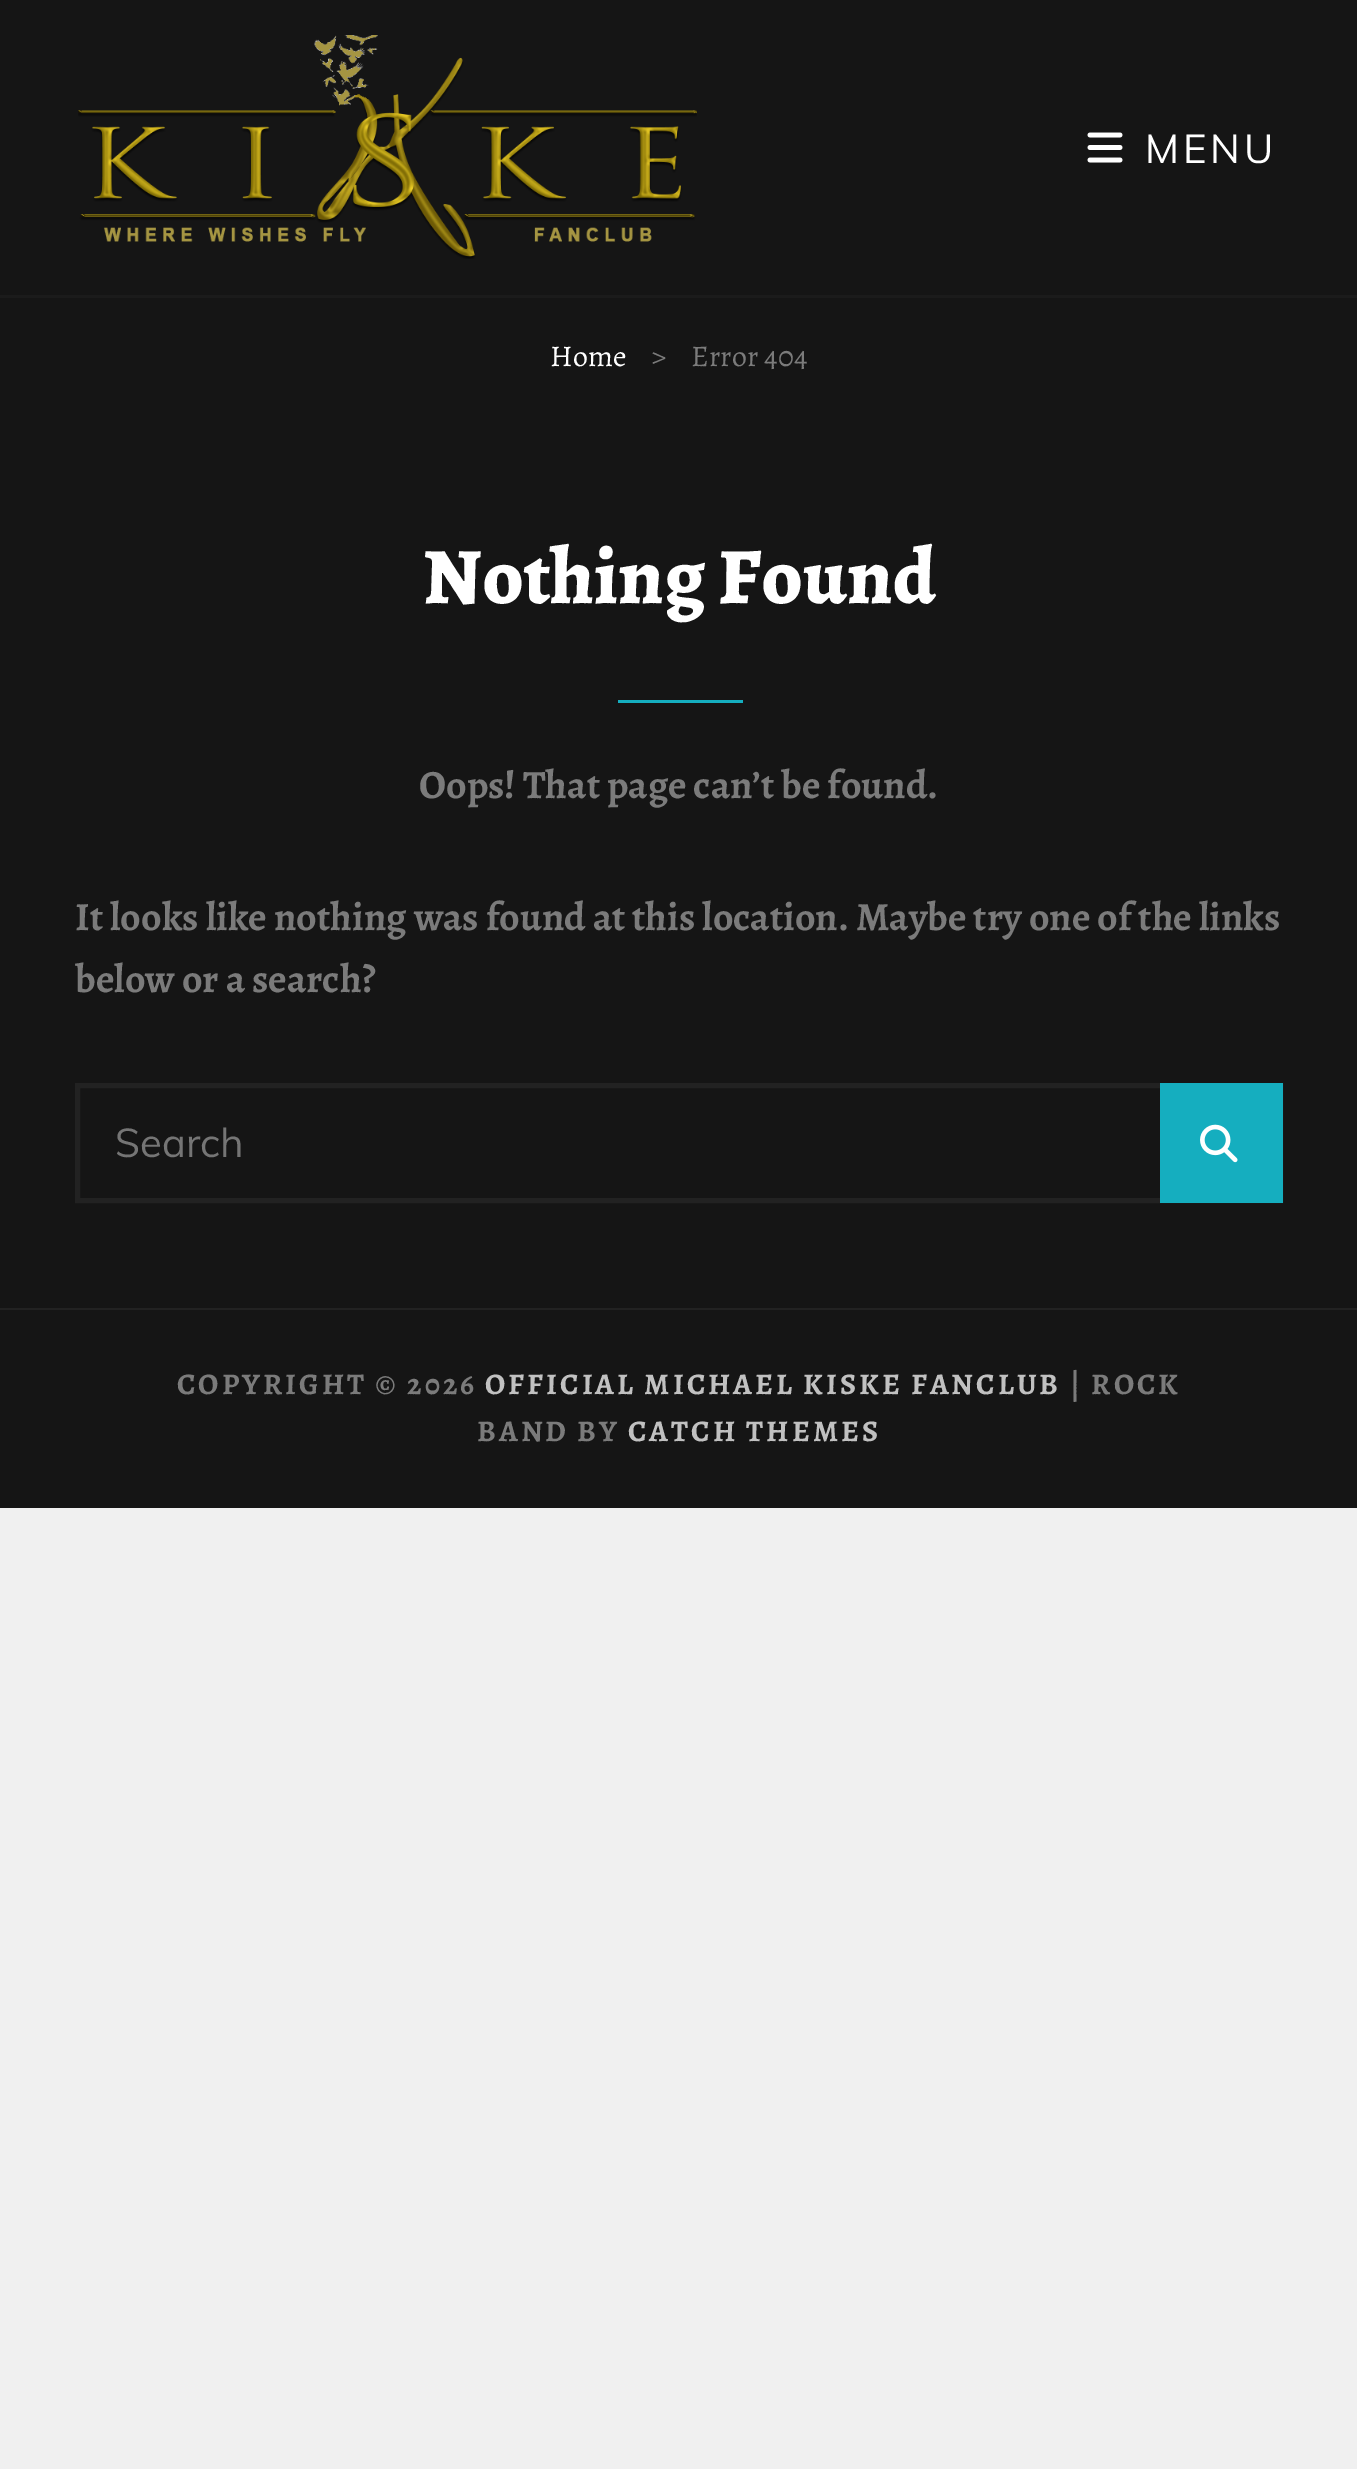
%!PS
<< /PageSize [1357 2469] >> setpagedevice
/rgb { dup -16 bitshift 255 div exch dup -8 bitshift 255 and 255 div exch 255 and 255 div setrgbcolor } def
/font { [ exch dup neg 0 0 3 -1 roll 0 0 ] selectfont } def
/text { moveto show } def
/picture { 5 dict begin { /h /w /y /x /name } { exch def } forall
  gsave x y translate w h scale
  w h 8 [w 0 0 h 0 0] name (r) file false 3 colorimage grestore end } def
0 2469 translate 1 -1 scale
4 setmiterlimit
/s1 { /Alegreya-Regular 30 font 16#FFFFFF rgb } def
/s2 { /Alegreya-Regular 30 font 16#7B7B7B rgb } def
/s3 { /Alegreya-ExtraBold 80 font 16#FFFFFF rgb } def
/s4 { /Alegreya-Bold 40 font 16#7B7B7B rgb } def
/s5 { /Muli-Regular 40 font 16#757575 rgb } def
16#F0F0F0 rgb
0 0 1357 2469 rectfill
16#151515 rgb
0 0 1357 1308 rectfill
16#1B1B1B rgb
0 295 1357 3 rectfill
(pic1.raw) 78 35 619 224 picture
(pic2.raw) 1087 132 36 31 picture
/Muli-Regular 40 font
16#FFFFFF rgb
1145 163 moveto 4 0 (MENU) ashow
s1
(Home) 550 366 text
s2
(>) 651 366 text
(Error 404) 691 366 text
16#222222 rgb
0 1308 1357 2 rectfill
s3
(Nothing Found) 423 603 text
16#15AEBF rgb
618 700 125 3 rectfill
s4
(Oops! That page can’t be found.) 419 798 text
(It looks like nothing was found at this location. Maybe try one of the links) 75 930 text
(below or a search?) 75 992 text
16#222222 rgb
5 setlinewidth
77.5 1085.5 1203 115 rectstroke
s5
(Search) 115 1157 text
16#15AEBF rgb
1160 1083 123 120 rectfill
(pic3.raw) 1200 1124 38 39 picture
16#151515 rgb
0 1310 1357 198 rectfill
/Alegreya-Bold 30 font
16#7B7B7B rgb
177 1394 moveto 3 0 (COPYRIGHT © 2026) ashow
16#C1C1C1 rgb
485 1394 moveto 3 0 (OFFICIAL MICHAEL KISKE FANCLUB) ashow
16#7B7B7B rgb
1070 1394 moveto 3 0 (| ROCK) ashow
477 1441 moveto 3 0 (BAND BY) ashow
16#C1C1C1 rgb
628 1441 moveto 3 0 (CATCH THEMES) ashow
showpage
